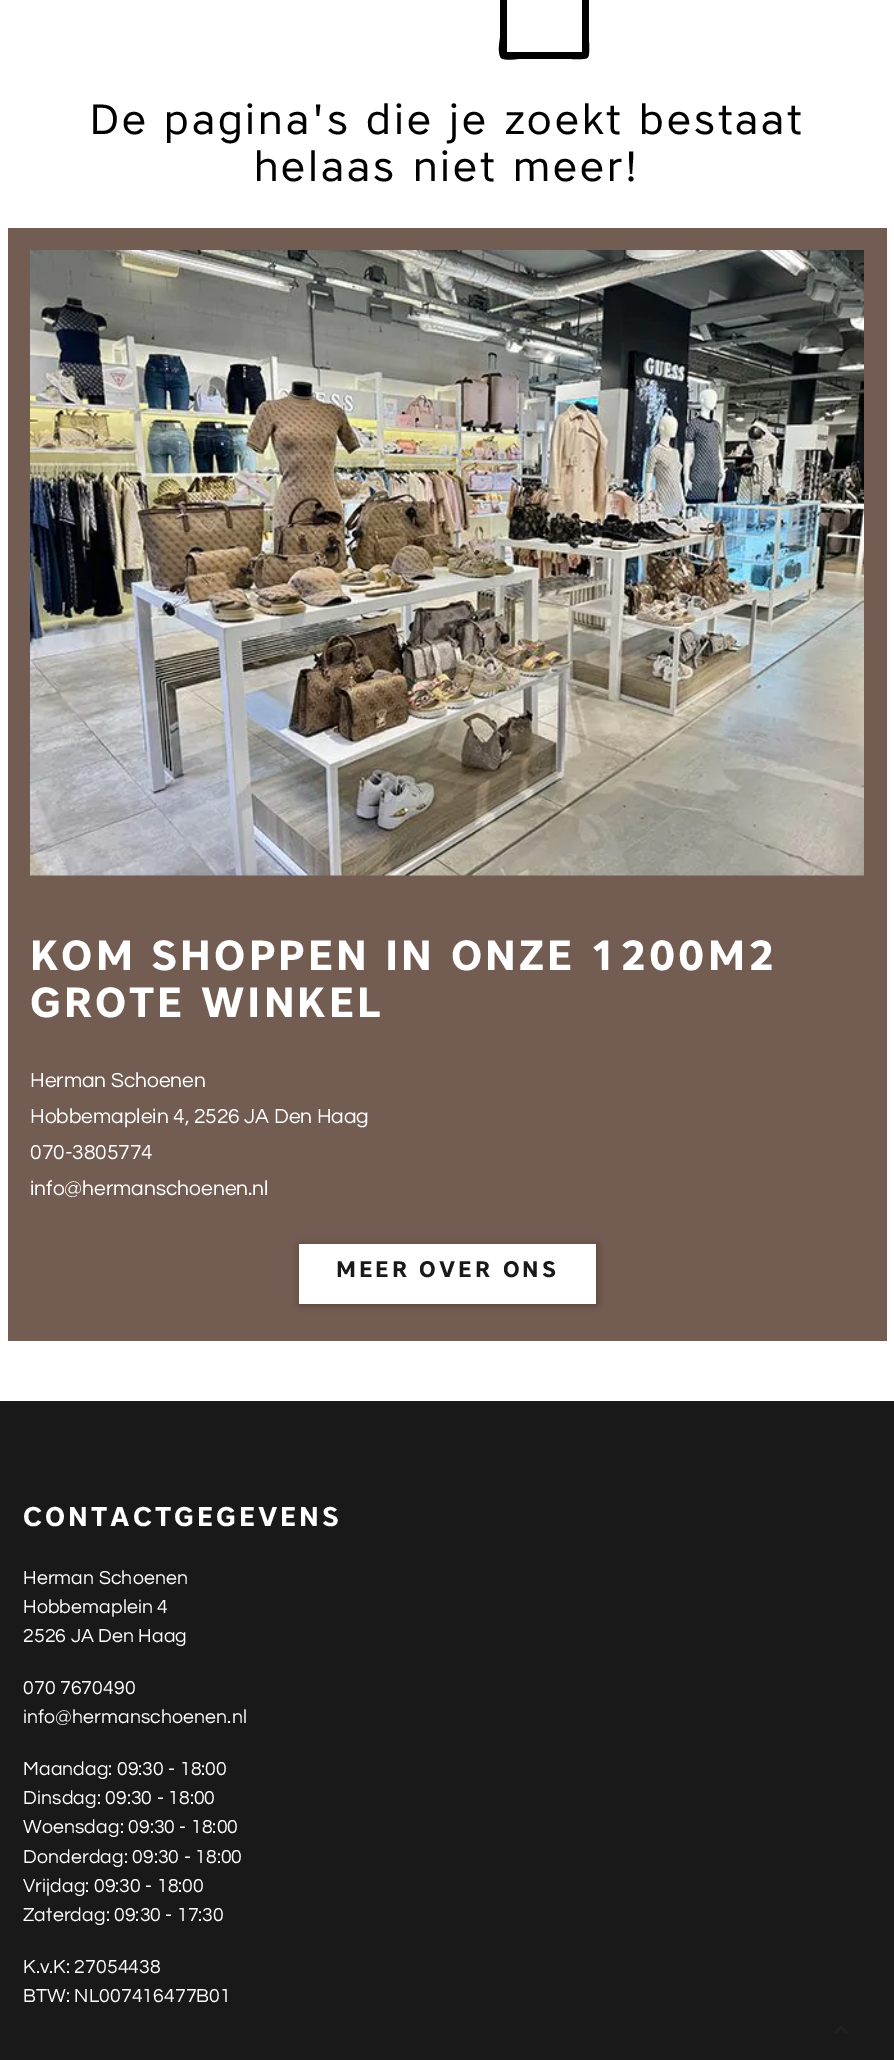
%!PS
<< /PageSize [894 2060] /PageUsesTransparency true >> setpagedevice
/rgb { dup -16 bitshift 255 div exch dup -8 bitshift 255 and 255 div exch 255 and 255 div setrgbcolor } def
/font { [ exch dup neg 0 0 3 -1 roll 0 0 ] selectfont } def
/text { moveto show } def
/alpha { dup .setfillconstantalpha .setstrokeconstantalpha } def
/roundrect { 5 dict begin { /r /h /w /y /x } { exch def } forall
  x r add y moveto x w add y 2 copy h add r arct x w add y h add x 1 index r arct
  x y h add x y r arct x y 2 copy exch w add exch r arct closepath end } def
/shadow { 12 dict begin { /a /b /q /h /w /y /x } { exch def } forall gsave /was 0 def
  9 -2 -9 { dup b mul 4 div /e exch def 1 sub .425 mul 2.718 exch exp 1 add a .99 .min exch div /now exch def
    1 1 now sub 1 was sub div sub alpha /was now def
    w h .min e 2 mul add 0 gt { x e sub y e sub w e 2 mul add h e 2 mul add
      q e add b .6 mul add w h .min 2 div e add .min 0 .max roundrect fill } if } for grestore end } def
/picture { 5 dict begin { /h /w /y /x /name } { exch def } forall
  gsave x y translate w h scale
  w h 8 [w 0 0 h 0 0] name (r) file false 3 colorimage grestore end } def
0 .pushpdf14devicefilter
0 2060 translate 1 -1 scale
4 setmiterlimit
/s1 { /Questrial-Regular 21 font 16#FFFFFF rgb } def
16#FFFFFF rgb
0 0 894 2060 rectfill
16#000000 rgb
585 -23 moveto 591 -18 589 -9 589 -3 curveto 589 42 lineto 589 61 591 59 571 59 curveto 518 59 lineto 517 59 505 61 501 58 curveto 497 53 500 39 500 38 curveto 500 -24 lineto 500 -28 496 -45 505 -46 curveto 531 -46 lineto 570 -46 559 -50 585 -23 curveto closepath 559 -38 moveto 559 -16 lineto 582 -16 lineto 580 -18 lineto 562 -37 lineto closepath 582 52 moveto 582 -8 lineto 547 -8 552 -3 552 -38 curveto 507 -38 lineto 507 52 lineto closepath fill
/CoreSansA-Regular 42 font
90 134 moveto 3 0 (De pagina's die je zoekt bestaat) ashow
254 181 moveto 3 0 (helaas niet meer!) ashow
16#735C52 rgb
8 228 879 1113 rectfill
(pic1.raw) 30 250 834 626 picture
/CoreSansA-Bold 42 font
16#FFFFFF rgb
30 970 moveto 3 0 (KOM SHOPPEN IN ONZE 1200M2) ashow
30 1017 moveto 3 0 (GROTE WINKEL) ashow
s1
(Herman Schoenen) 30 1087 text
(Hobbemaplein 4, 2526 JA Den Haag) 30 1123 text
(070-3805774) 30 1159 text
(info@hermanschoenen.nl) 30 1195 text
16#000000 rgb
300 1245 297 60 0 4 0.3 shadow
16#FFFFFF rgb
299 1244 297 60 rectfill
/CoreSansA-Bold 22.5 font
16#191919 rgb
336 1277 moveto 3 0 (MEER OVER ONS) ashow
0 1401 894 659 rectfill
/CoreSansA-Bold 27 font
16#FFFFFF rgb
23 1526 moveto 3 0 (CONTACTGEGEVENS) ashow
/Questrial-Regular 19.5 font
23 1584 moveto 0.1 0 (Herman Schoenen) ashow
23 1613 moveto 0.1 0 (Hobbemaplein 4) ashow
23 1642 moveto 0.1 0 (2526 JA Den Haag) ashow
23 1694 moveto 0.1 0 (070 7670490) ashow
23 1723 moveto 0.1 0 (info@hermanschoenen.nl) ashow
23 1775 moveto 0.1 0 (Maandag: 09:30 - 18:00) ashow
23 1804 moveto 0.1 0 (Dinsdag: 09:30 - 18:00) ashow
23 1833 moveto 0.1 0 (Woensdag: 09:30 - 18:00) ashow
23 1863 moveto 0.1 0 (Donderdag: 09:30 - 18:00) ashow
23 1892 moveto 0.1 0 (Vrijdag: 09:30 - 18:00) ashow
23 1921 moveto 0.1 0 (Zaterdag: 09:30 - 17:30) ashow
23 1973 moveto 0.1 0 (K.v.K: 27054438) ashow
23 2002 moveto 0.1 0 (BTW: NL007416477B01) ashow
(pic2.raw) 834 2026 14 8 picture
.poppdf14devicefilter showpage
